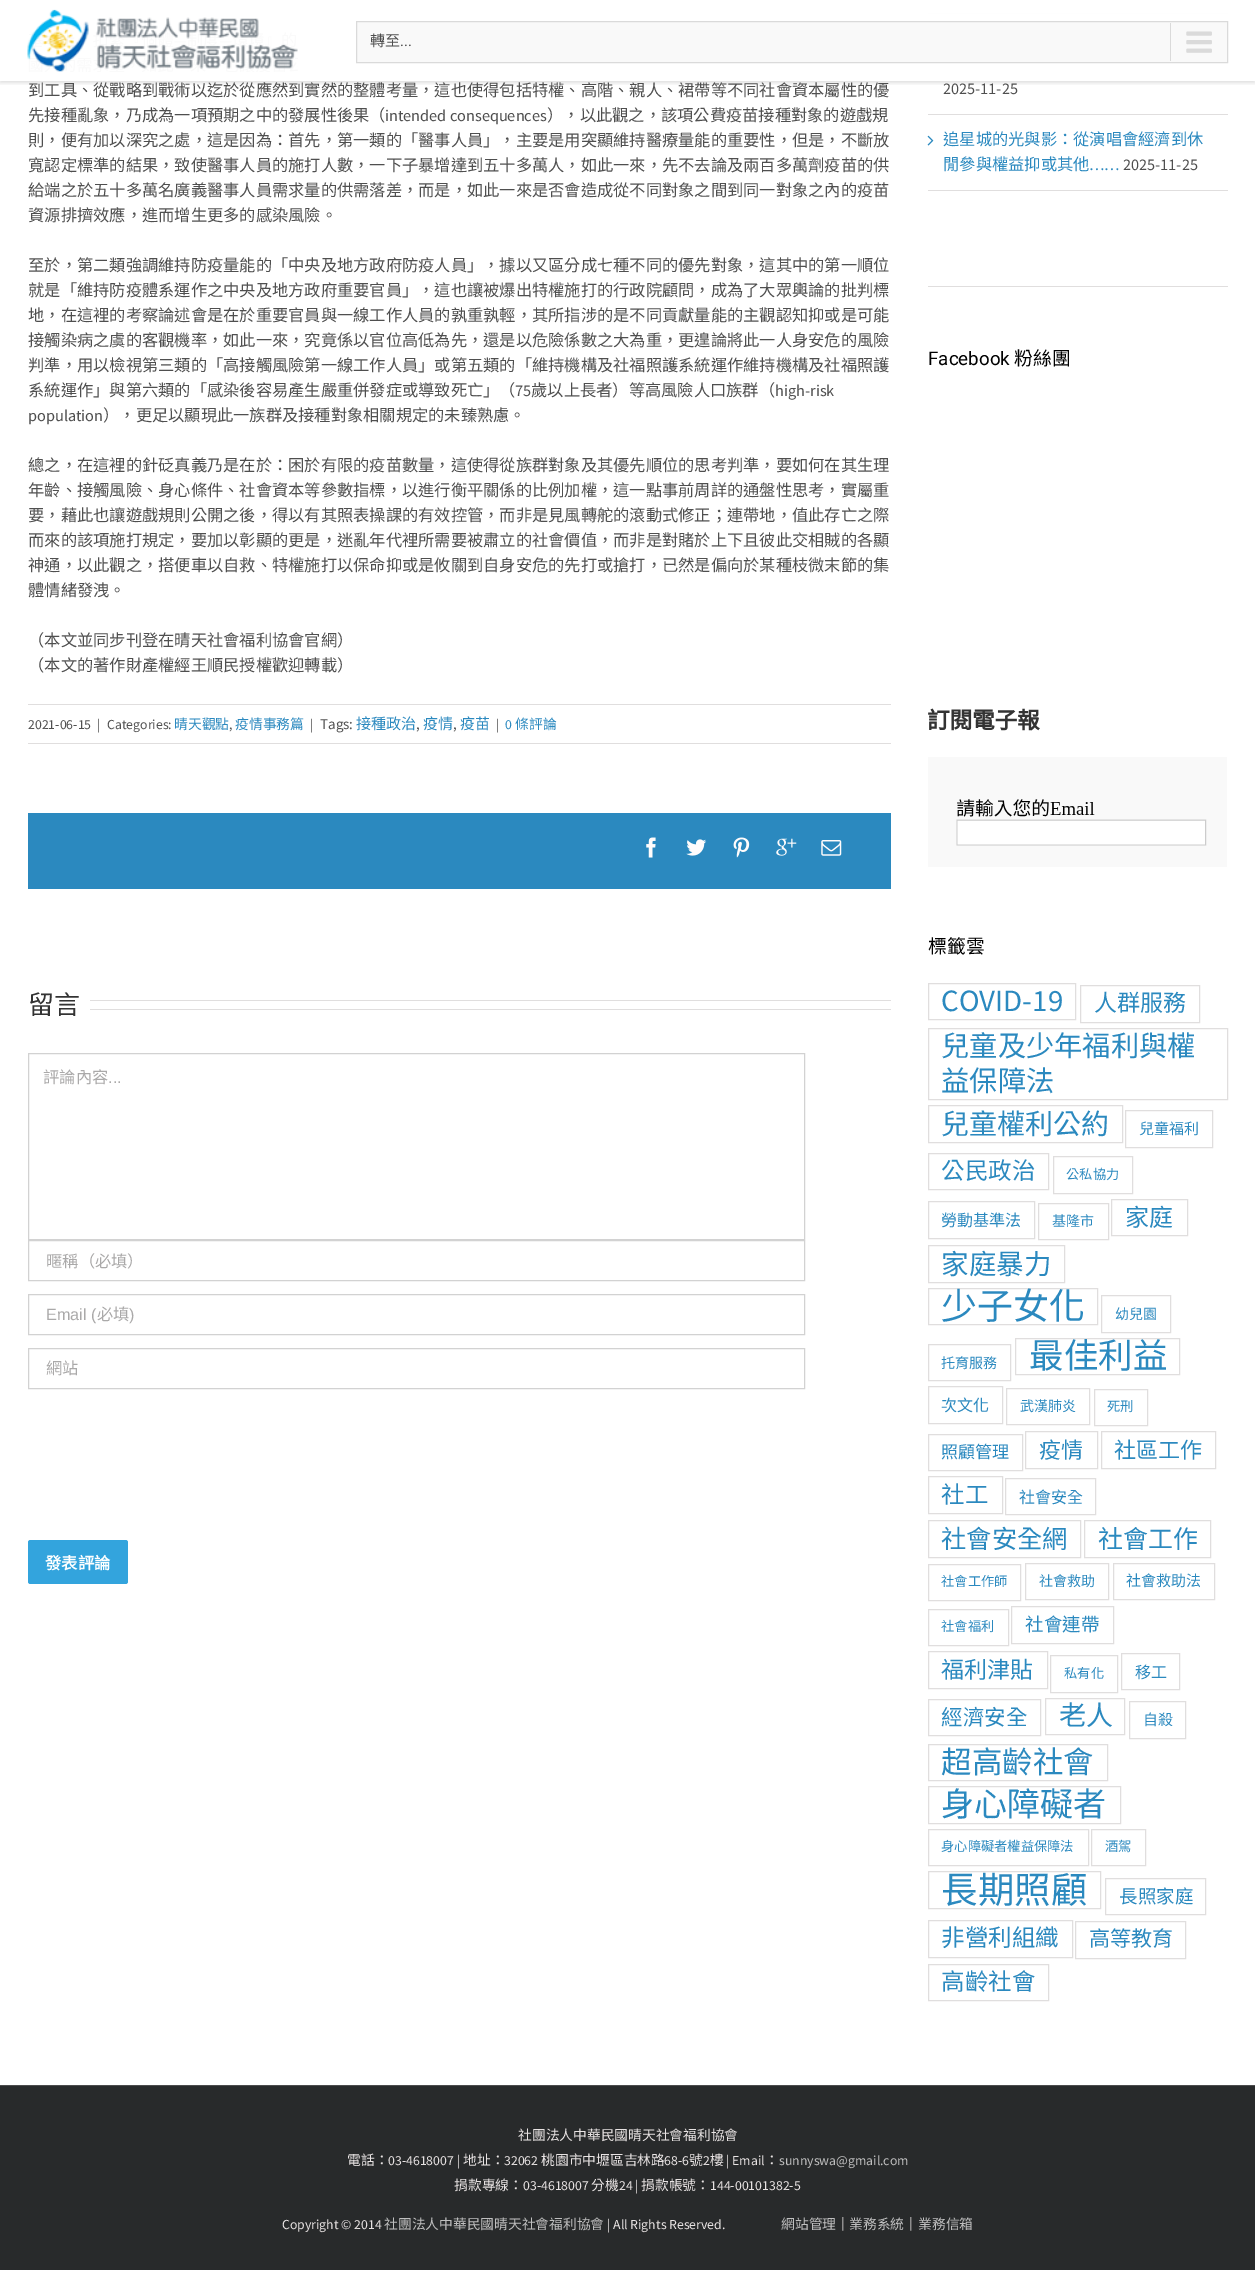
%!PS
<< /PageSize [1255 2270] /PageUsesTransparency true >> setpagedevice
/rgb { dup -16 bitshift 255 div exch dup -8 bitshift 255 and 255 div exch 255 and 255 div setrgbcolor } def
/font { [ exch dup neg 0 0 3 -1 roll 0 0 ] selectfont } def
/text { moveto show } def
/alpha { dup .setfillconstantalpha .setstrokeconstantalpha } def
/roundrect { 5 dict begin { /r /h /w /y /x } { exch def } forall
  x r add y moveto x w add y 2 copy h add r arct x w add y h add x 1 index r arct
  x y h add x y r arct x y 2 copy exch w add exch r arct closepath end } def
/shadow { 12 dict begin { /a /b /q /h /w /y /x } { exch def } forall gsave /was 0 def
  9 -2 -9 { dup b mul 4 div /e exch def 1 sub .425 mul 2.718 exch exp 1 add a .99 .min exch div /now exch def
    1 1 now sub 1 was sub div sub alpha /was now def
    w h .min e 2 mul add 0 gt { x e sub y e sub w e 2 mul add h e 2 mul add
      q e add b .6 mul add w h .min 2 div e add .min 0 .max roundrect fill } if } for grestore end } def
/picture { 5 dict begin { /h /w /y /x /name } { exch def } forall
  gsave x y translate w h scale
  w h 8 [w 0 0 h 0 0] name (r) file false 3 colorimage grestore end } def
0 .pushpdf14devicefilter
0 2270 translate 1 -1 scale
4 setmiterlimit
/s1 { /NotoSansCJKTC-Regular 15 font 16#4F4F4F rgb } def
/s2 { /Roboto-Regular 15 font 16#4F4F4F rgb } def
/s3 { /NotoSansCJKTC-Regular 16.25 font 16#4F4F4F rgb } def
/s4 { /SourceSansPro-Regular 16.25 font 16#4F4F4F rgb } def
/s5 { /SourceSansPro-Regular 13.75 font 16#4F4F4F rgb } def
/s6 { /NotoSansCJKTC-Regular 13.75 font 16#2B89BF rgb } def
/s7 { /SourceSansPro-Regular 15 font 16#4F4F4F rgb } def
/s8 { /NotoSansCJKTC-Regular 15 font 16#2B89BF rgb } def
/s9 { /SourceSansPro-Regular 13.75 font 16#2B89BF rgb } def
/s10 { /NotoSansCJKTC-Regular 26 font 16#333333 rgb } def
/s11 { /NotoSansCJKTC-Regular 16.25 font 16#AAA9A9 rgb } def
/s12 { /LiberationSans-Regular 16.25 font 16#AAA9A9 rgb } def
/s13 { /NotoSansCJKTC-Bold 16.25 font 16#FFFFFF rgb } def
/s14 { /NotoSansCJKTC-Regular 16.25 font 16#2B89BF rgb } def
/s15 { /SourceSansPro-Regular 16.25 font 16#2B89BF rgb } def
/s16 { /Roboto-Regular 18.75 font 16#000000 rgb } def
/s17 { /NotoSansCJKTC-Regular 18.75 font 16#000000 rgb } def
/s18 { /SourceSansPro-Regular 31 font 16#2B89BF rgb } def
/s19 { /NotoSansCJKTC-Regular 23 font 16#2B89BF rgb } def
/s20 { /NotoSansCJKTC-Regular 28.25 font 16#2B89BF rgb } def
/s21 { /NotoSansCJKTC-Regular 28 font 16#2B89BF rgb } def
/s22 { /NotoSansCJKTC-Regular 23.5 font 16#2B89BF rgb } def
/s23 { /NotoSansCJKTC-Regular 13.25 font 16#2B89BF rgb } def
/s24 { /NotoSansCJKTC-Regular 16 font 16#2B89BF rgb } def
/s25 { /NotoSansCJKTC-Regular 14 font 16#2B89BF rgb } def
/s26 { /NotoSansCJKTC-Regular 24 font 16#2B89BF rgb } def
/s27 { /NotoSansCJKTC-Regular 27.5 font 16#2B89BF rgb } def
/s28 { /NotoSansCJKTC-Regular 36 font 16#2B89BF rgb } def
/s29 { /NotoSansCJKTC-Regular 34.5 font 16#2B89BF rgb } def
/s30 { /NotoSansCJKTC-Regular 17 font 16#2B89BF rgb } def
/s31 { /NotoSansCJKTC-Regular 22 font 16#2B89BF rgb } def
/s32 { /NotoSansCJKTC-Regular 25.25 font 16#2B89BF rgb } def
/s33 { /NotoSansCJKTC-Regular 25 font 16#2B89BF rgb } def
/s34 { /NotoSansCJKTC-Regular 18.5 font 16#2B89BF rgb } def
/s35 { /NotoSansCJKTC-Regular 21.5 font 16#2B89BF rgb } def
/s36 { /NotoSansCJKTC-Regular 27 font 16#2B89BF rgb } def
/s37 { /NotoSansCJKTC-Regular 30.5 font 16#2B89BF rgb } def
/s38 { /NotoSansCJKTC-Regular 33 font 16#2B89BF rgb } def
/s39 { /NotoSansCJKTC-Regular 36.5 font 16#2B89BF rgb } def
/s40 { /NotoSansCJKTC-Regular 21 font 16#2B89BF rgb } def
/s41 { /NotoSansCJKTC-Regular 13.75 font 16#E8E3E3 rgb } def
/s42 { /SourceSansPro-Regular 13.75 font 16#E8E3E3 rgb } def
/s43 { /SourceSansPro-Regular 13.75 font 16#BFBFBF rgb } def
/s44 { /NotoSansCJKTC-Regular 13.75 font 16#BFBFBF rgb } def
16#FFFFFF rgb
0 0 1255 2270 rectfill
16#E0DEDE rgb
928 13 300 1 rectfill
gsave
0 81 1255 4 rectclip
16#000000 rgb
0 1 1255 82 0 2 0.12 shadow
grestore
0.97 alpha
16#FFFFFF rgb
928 13 300 1 rectfill
1 alpha
(pic1.raw) 27 9 271 63 picture
16#F9F9F9 rgb
356.5 21.5 moveto 1227.5 21.5 lineto 1227.5 62.5 lineto 356.5 62.5 lineto closepath gsave fill grestore
16#DADADA rgb
stroke
s1
(轉至) 370 46 text
s2
(...) 400 46 text
16#DADADA rgb
1170 23 1 38 rectfill
(pic2.raw) 1186 31 26 22 picture
s3
(到工具、從戰略到戰術以迄於從應然到實然的整體考量，這也使得包括特權、高階、親人、裙帶等不同社會資本屬性的優) 28 96 text
(先接種亂象，乃成為一項預期之中的發展性後果（) 28 121 text
s4
(intended consequences) 385 121 text
s3
(），以此觀之，該項公費疫苗接種對象的遊戲規) 547 121 text
(則，便有加以深究之處，這是因為：首先，第一類的「醫事人員」，主要是用突顯維持醫療量能的重要性，但是，不斷放) 28 146 text
(寬認定標準的結果，致使醫事人員的施打人數，一下子暴增達到五十多萬人，如此一來，先不去論及兩百多萬劑疫苗的供) 28 171 text
(給端之於五十多萬名廣義醫事人員需求量的供需落差，而是，如此一來是否會造成從不同對象之間到同一對象之內的疫苗) 28 196 text
(資源排擠效應，進而增生更多的感染風險。) 28 221 text
(至於，第二類強調維持防疫量能的「中央及地方政府防疫人員」，據以又區分成七種不同的優先對象，這其中的第一順位) 28 271 text
(就是「維持防疫體系運作之中央及地方政府重要官員」，這也讓被爆出特權施打的行政院顧問，成為了大眾輿論的批判標) 28 296 text
(地，在這裡的考察論述會是在於重要官員與一線工作人員的孰重孰輕，其所指涉的是不同貢獻量能的主觀認知抑或是可能) 28 321 text
(接觸染病之虞的客觀機率，如此一來，究竟係以官位高低為先，還是以危險係數之大為重，更遑論將此一人身安危的風險) 28 346 text
(判準，用以檢視第三類的「高接觸風險第一線工作人員」或第五類的「維持機構及社福照護系統運作維持機構及社福照護) 28 371 text
(系統運作」與第六類的「感染後容易產生嚴重併發症或導致死亡」（) 28 396 text
s4
(75) 515 396 text
s3
(歲以上長者）等高風險人口族群（) 531 396 text
s4
(high-risk) 775 396 text
(population) 28 421 text
s3
(），更足以顯現此一族群及接種對象相關規定的未臻熟慮。) 103 421 text
(總之，在這裡的針砭真義乃是在於：困於有限的疫苗數量，這使得從族群對象及其優先順位的思考判準，要如何在其生理) 28 471 text
(年齡、接觸風險、身心條件、社會資本等參數指標，以進行衡平關係的比例加權，這一點事前周詳的通盤性思考，實屬重) 28 496 text
(要，藉此也讓遊戲規則公開之後，得以有其照表操課的有效控管，而非是見風轉舵的滾動式修正；連帶地，值此存亡之際) 28 521 text
(而來的該項施打規定，要加以彰顯的更是，迷亂年代裡所需要被肅立的社會價值，而非是對賭於上下且彼此交相賊的各顯) 28 546 text
(神通，以此觀之，搭便車以自救、特權施打以保命抑或是攸關到自身安危的先打或搶打，已然是偏向於某種枝微末節的集) 28 571 text
(體情緒發洩。) 28 596 text
(（本文並同步刊登在晴天社會福利協會官網）) 28 646 text
(（本文的著作財產權經王順民授權歡迎轉載）) 28 671 text
16#E0DEDE rgb
28 704 863 1 rectfill
28 743 863 1 rectfill
s5
(2021-06-15) 28 729 text
(|) 97 729 text
(Categories:) 107 729 text
s6
(晴天觀點) 174 729 text
s5
(,) 229 729 text
s6
(疫情事務篇) 235 729 text
s5
(|) 310 729 text
s7
(Tags:) 320 729 text
s8
(接種政治) 356 729 text
s7
(,) 416 729 text
s8
(疫情) 423 729 text
s7
(,) 453 729 text
s8
(疫苗) 460 729 text
s5
(|) 496 729 text
s9
(0) 505 729 text
s6
(條評論) 515 729 text
28 813 863 76 rectfill
(pic3.raw) 646 837 10 21 picture
(pic4.raw) 686 839 21 17 picture
(pic5.raw) 733 837 17 21 picture
(pic6.raw) 776 838 21 18 picture
(pic7.raw) 821 840 21 16 picture
s10
(留言) 28 1014 text
16#E0DEDE rgb
90 1000 801 1 rectfill
90 1009 801 1 rectfill
16#D2D2D2 rgb
28.5 1053.5 776 186 rectstroke
s11
(評論內容) 43 1083 text
s12
(...) 108 1083 text
16#D2D2D2 rgb
28.5 1240.5 776 40 rectstroke
s11
(暱稱（必填）) 46 1267 text
16#D2D2D2 rgb
28.5 1294.5 776 40 rectstroke
s12
(Email \() 46 1320 text
s11
(必填) 97 1320 text
s12
(\)) 129 1320 text
16#D2D2D2 rgb
28.5 1348.5 776 40 rectstroke
s11
(網站) 46 1374 text
16#33A4DD rgb
28 1540 100 44 2.5 roundrect fill
s13
(發表評論) 45 1569 text
16#E0DEDE rgb
928 114 300 1 rectfill
s4
(2025-11-25) 943 94 text
16#E0DEDE rgb
928 190 300 1 rectfill
(pic8.raw) 927 135 7 11 picture
s14
(追星城的光與影：從演唱會經濟到休) 943 145 text
(閒參與權益抑或其他) 943 170 text
s15
(……) 1089 170 text
s4
(2025-11-25) 1123 170 text
16#E0DEDE rgb
928 286 300 1 rectfill
s16
(Facebook) 928 365 text
s17
(粉絲團) 1014 365 text
(pic9.raw) 928 708 299 159 picture
(標籤雲) 928 953 text
16#E0DEDE rgb
928.5 983.5 147 36 rectstroke
s18
(COVID-19) 941 1011 text
16#E0DEDE rgb
1080.5 985.5 119 37 rectstroke
s19
(人群服務) 1094 1011 text
16#E0DEDE rgb
928.5 1028.5 299 71 rectstroke
s20
(兒童及少年福利與權) 941 1056 text
(益保障法) 941 1091 text
16#E0DEDE rgb
928.5 1105.5 194 37 rectstroke
s21
(兒童權利公約) 941 1134 text
16#E0DEDE rgb
1125.5 1110.5 87 37 rectstroke
s8
(兒童福利) 1139 1134 text
16#E0DEDE rgb
928.5 1153.5 120 36 rectstroke
s22
(公民政治) 941 1179 text
16#E0DEDE rgb
1053.5 1156.5 79 37 rectstroke
s23
(公私協力) 1066 1179 text
16#E0DEDE rgb
928.5 1201.5 106 37 rectstroke
s24
(勞動基準法) 941 1226 text
16#E0DEDE rgb
1038.5 1203.5 70 36 rectstroke
s25
(基隆市) 1052 1226 text
16#E0DEDE rgb
1111.5 1199.5 76 36 rectstroke
s26
(家庭) 1125 1226 text
16#E0DEDE rgb
928.5 1245.5 136 37 rectstroke
s27
(家庭暴力) 941 1274 text
16#E0DEDE rgb
928.5 1288.5 169 36 rectstroke
s28
(少子女化) 941 1319 text
16#E0DEDE rgb
1101.5 1295.5 69 37 rectstroke
s25
(幼兒園) 1115 1319 text
16#E0DEDE rgb
928.5 1344.5 82 36 rectstroke
s25
(托育服務) 941 1368 text
16#E0DEDE rgb
1015.5 1338.5 164 36 rectstroke
s29
(最佳利益) 1029 1368 text
16#E0DEDE rgb
928.5 1386.5 74 37 rectstroke
s24
(次文化) 941 1411 text
16#E0DEDE rgb
1006.5 1388.5 83 36 rectstroke
s25
(武漢肺炎) 1020 1411 text
16#E0DEDE rgb
1094.5 1389.5 53 36 rectstroke
s23
(死刑) 1107 1411 text
16#E0DEDE rgb
928.5 1434.5 94 36 rectstroke
s30
(照顧管理) 941 1458 text
16#E0DEDE rgb
1025.5 1431.5 72 37 rectstroke
s31
(疫情) 1039 1458 text
16#E0DEDE rgb
1101.5 1431.5 114 37 rectstroke
s31
(社區工作) 1114 1458 text
16#E0DEDE rgb
928.5 1476.5 74 37 rectstroke
s22
(社工) 941 1503 text
16#E0DEDE rgb
1005.5 1478.5 90 36 rectstroke
s24
(社會安全) 1019 1503 text
16#E0DEDE rgb
928.5 1520.5 152 37 rectstroke
s32
(社會安全網) 941 1548 text
16#E0DEDE rgb
1084.5 1520.5 126 37 rectstroke
s33
(社會工作) 1098 1548 text
16#E0DEDE rgb
928.5 1564.5 92 36 rectstroke
s23
(社會工作師) 941 1586 text
16#E0DEDE rgb
1025.5 1563.5 83 36 rectstroke
s25
(社會救助) 1039 1586 text
16#E0DEDE rgb
1113.5 1563.5 101 36 rectstroke
s8
(社會救助法) 1126 1586 text
16#E0DEDE rgb
928.5 1609.5 80 36 rectstroke
s23
(社會福利) 941 1631 text
16#E0DEDE rgb
1011.5 1606.5 102 37 rectstroke
s34
(社會連帶) 1025 1631 text
16#E0DEDE rgb
928.5 1651.5 119 37 rectstroke
s19
(福利津貼) 941 1678 text
16#E0DEDE rgb
1050.5 1655.5 67 37 rectstroke
s23
(私有化) 1064 1678 text
16#E0DEDE rgb
1121.5 1653.5 58 36 rectstroke
s24
(移工) 1135 1678 text
16#E0DEDE rgb
928.5 1699.5 112 36 rectstroke
s35
(經濟安全) 941 1725 text
16#E0DEDE rgb
1045.5 1698.5 79 36 rectstroke
s36
(老人) 1059 1725 text
16#E0DEDE rgb
1129.5 1701.5 56 37 rectstroke
s8
(自殺) 1143 1725 text
16#E0DEDE rgb
928.5 1744.5 179 36 rectstroke
s37
(超高齡社會) 941 1773 text
16#E0DEDE rgb
928.5 1786.5 192 37 rectstroke
s38
(身心障礙者) 941 1816 text
16#E0DEDE rgb
928.5 1829.5 160 36 rectstroke
s23
(身心障礙者權益保障法) 941 1851 text
16#E0DEDE rgb
1091.5 1829.5 54 36 rectstroke
s23
(酒駕) 1105 1851 text
16#E0DEDE rgb
928.5 1871.5 172 37 rectstroke
s39
(長期照顧) 941 1903 text
16#E0DEDE rgb
1105.5 1878.5 100 36 rectstroke
s34
(長照家庭) 1119 1903 text
16#E0DEDE rgb
928.5 1920.5 144 37 rectstroke
s22
(非營利組織) 941 1946 text
16#E0DEDE rgb
1075.5 1921.5 110 37 rectstroke
s40
(高等教育) 1089 1946 text
16#E0DEDE rgb
928.5 1964.5 120 36 rectstroke
s22
(高齡社會) 941 1990 text
16#282A2B rgb
0 2086 1255 184 rectfill
16#4B4C4D rgb
0 2085 1255 1 rectfill
s41
(社團法人中華民國晴天社會福利協會) 518 2140 text
(電話：) 347 2165 text
s42
(03-4618007 |) 388 2165 text
s41
(地址：) 463 2165 text
s42
(32062) 504 2165 text
s41
(桃園市中壢區吉林路) 541 2165 text
s42
(68-6) 664 2165 text
s41
(號) 689 2165 text
s42
(2) 703 2165 text
s41
(樓) 710 2165 text
s42
(| Email) 726 2165 text
s41
(：) 765 2165 text
s43
(sunnyswa@gmail.com) 779 2165 text
s41
(捐款專線：) 454 2190 text
s42
(03-4618007) 523 2190 text
s41
(分機) 591 2190 text
s42
(24 |) 619 2190 text
s41
(捐款帳號：) 641 2190 text
s42
(144-00101382-5) 710 2190 text
(Copyright © 2014) 282 2229 text
s44
(社團法人中華民國晴天社會福利協會) 384 2229 text
s42
(| All Rights Reserved.) 607 2229 text
s44
(網站管理) 781 2229 text
s41
(｜) 836 2229 text
s44
(業務系統) 849 2229 text
s41
(｜) 904 2229 text
s44
(業務信箱) 918 2229 text
.poppdf14devicefilter showpage
